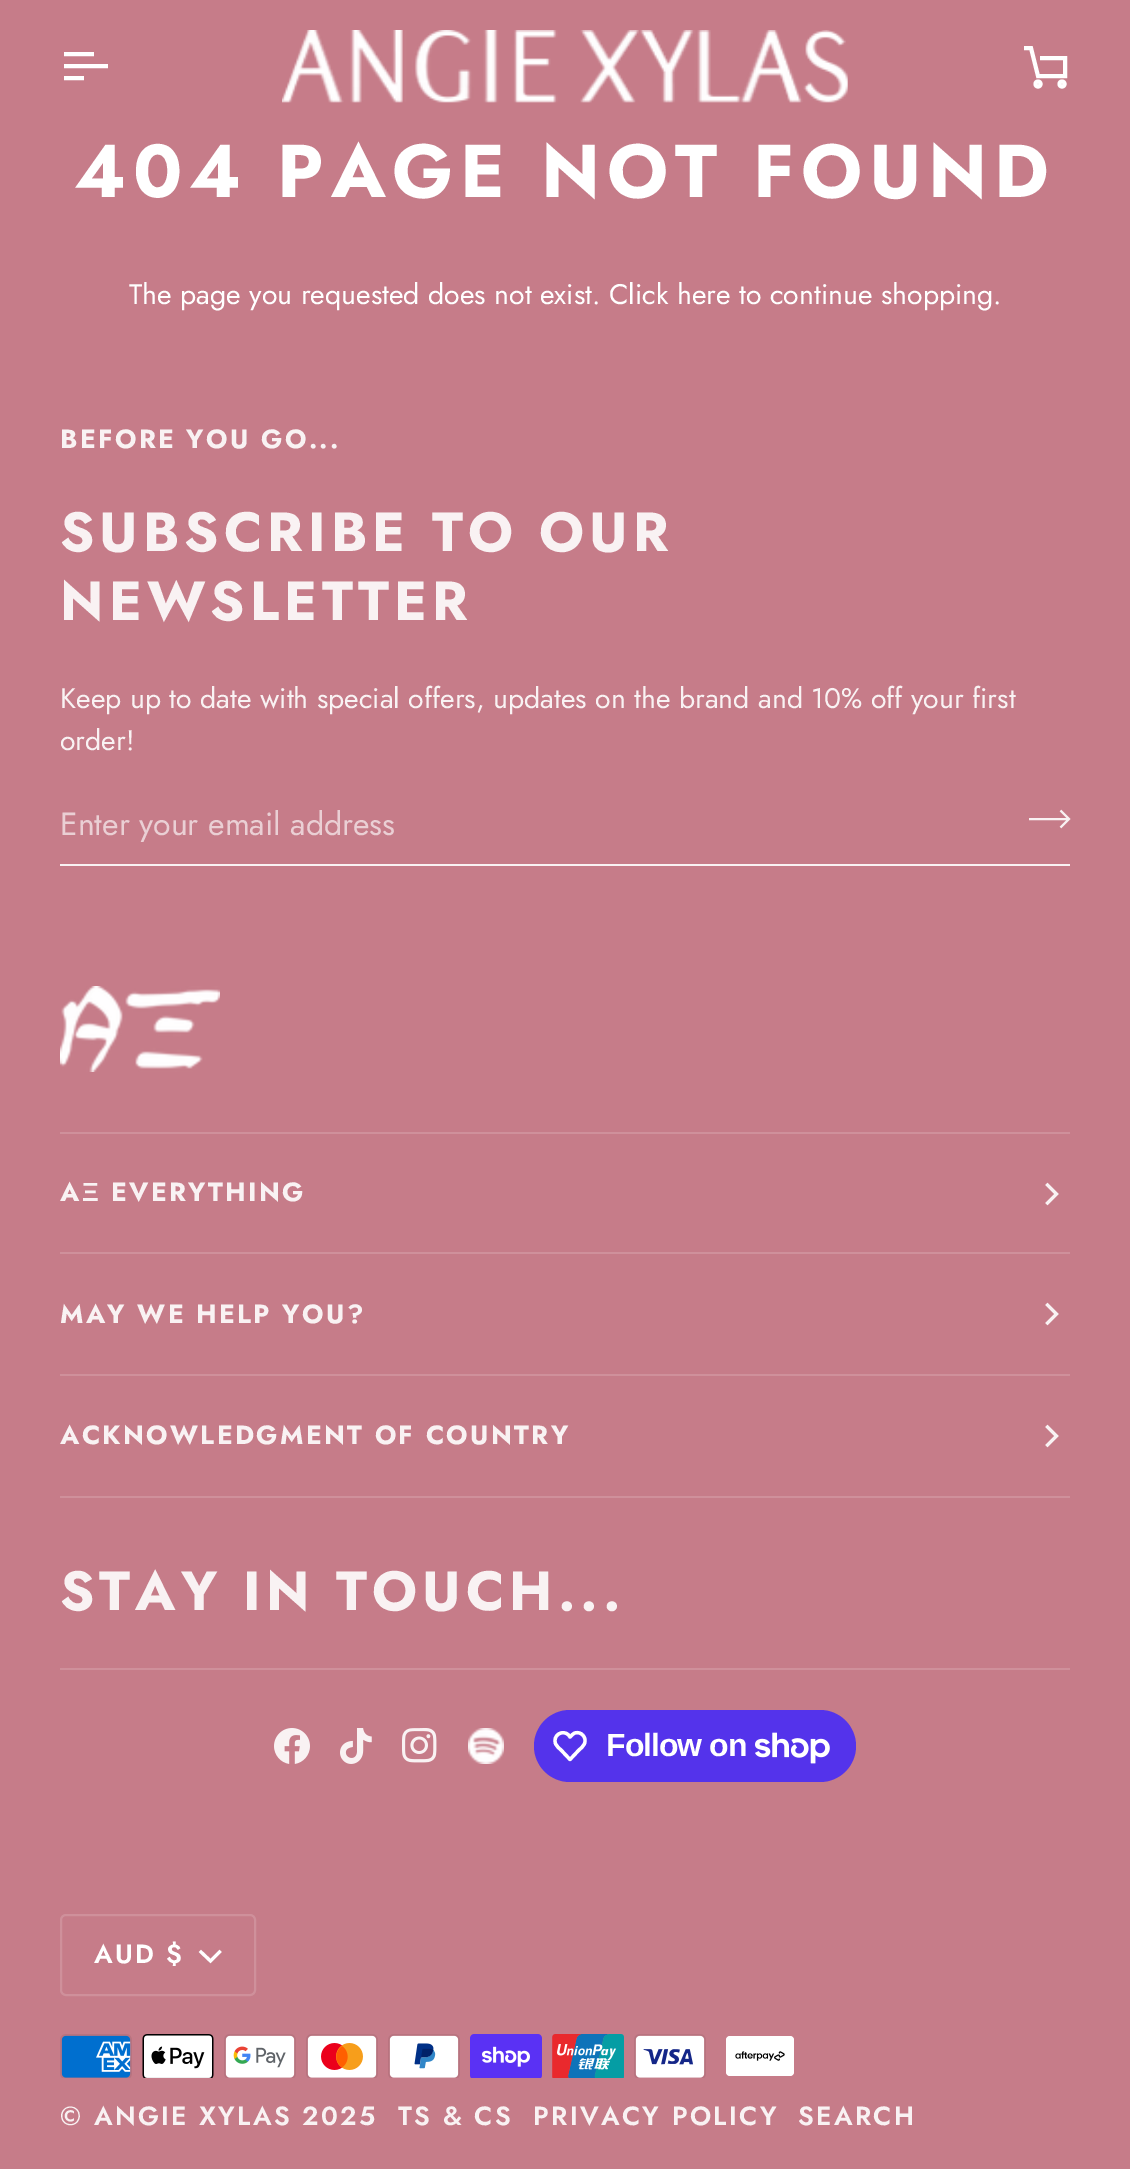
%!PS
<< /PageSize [1130 2169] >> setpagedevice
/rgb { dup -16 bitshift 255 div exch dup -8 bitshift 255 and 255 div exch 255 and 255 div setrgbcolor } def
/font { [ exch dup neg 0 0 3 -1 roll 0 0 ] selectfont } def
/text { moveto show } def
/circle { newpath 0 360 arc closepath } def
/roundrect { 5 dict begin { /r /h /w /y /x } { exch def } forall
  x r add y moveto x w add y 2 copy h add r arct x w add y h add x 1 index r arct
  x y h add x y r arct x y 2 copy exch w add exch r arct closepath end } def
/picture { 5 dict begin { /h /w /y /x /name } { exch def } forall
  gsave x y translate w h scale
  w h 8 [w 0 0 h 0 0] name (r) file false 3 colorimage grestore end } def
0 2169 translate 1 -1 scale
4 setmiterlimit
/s1 { /Jost-Regular 28.35 font 16#FFFFFF rgb } def
/s2 { /Jost-Regular 28.35 font 16#F9F2F3 rgb } def
/s3 { /Jost-Regular 32 font 16#EACFD4 rgb } def
16#C67C89 rgb
0 0 1130 2169 rectfill
16#FFFFFF rgb
4 setlinewidth
2 setlinecap
92 54 moveto 66 54 lineto 106 66 moveto 66 66 lineto 82 78 moveto 66 78 lineto stroke
(pic1.raw) 282 30 566 73 picture
0 setlinecap
1024 48 moveto 1031 48 lineto 1038 76 lineto 1065 76 lineto 1065 58 lineto 1040 58 lineto stroke
1038 84 2.5 circle stroke
1062 84 2.5 circle stroke
/Jost-Bold 74.75 font
74 197 moveto 6.75 0 (404 PAGE NOT FOUND) ashow
s1
(The page you requested does not exist. Click here to continue shopping.) 129 304 text
/Jost-Bold 26.25 font
16#F9F2F3 rgb
60 448 moveto 2.35 0 (BEFORE YOU GO...) ashow
/Jost-Bold 55 font
60 551 moveto 5 0 (SUBSCRIBE TO OUR) ashow
60 620 moveto 5 0 (NEWSLETTER) ashow
s2
(Keep up to date with special offers, updates on the brand and 10% off your first) 60 708 text
(order!) 60 750 text
60 864 1010 2 rectfill
s3
(Enter your email address) 60 835 text
16#F9F2F3 rgb
2.1 setlinewidth
1060.5 810.5 moveto 1069 819 lineto 1060.5 827.5 lineto 1029 819 moveto 1069 819 lineto stroke
(pic2.raw) 60 986 160 86 picture
16#CF909B rgb
60 1132 1010 2 rectfill
60 1252 1010 2 rectfill
/Jost-Bold 26.25 font
16#F9F2F3 rgb
60 1201 moveto 2.35 0 (A) ashow
/LiberationSans-Bold 26.25 font
82 1201 moveto 2.35 0 (Ξ) ashow
/Jost-Bold 26.25 font
111 1201 moveto 2.35 0 (EVERYTHING) ashow
3 setlinewidth
2 setlinecap
1047.5 1203 moveto 1056.5 1194 lineto 1047.5 1185 lineto stroke
16#CF909B rgb
60 1374 1010 2 rectfill
16#F9F2F3 rgb
60 1323 moveto 2.35 0 (MAY WE HELP YOU?) ashow
1047.5 1323 moveto 1056.5 1314 lineto 1047.5 1305 lineto stroke
16#CF909B rgb
60 1496 1010 2 rectfill
16#F9F2F3 rgb
60 1444 moveto 2.35 0 (ACKNOWLEDGMENT OF COUNTRY) ashow
1047.5 1445 moveto 1056.5 1436 lineto 1047.5 1427 lineto stroke
/Jost-Bold 55 font
60 1610 moveto 5 0 (STAY IN TOUCH...) ashow
16#CF909B rgb
60 1668 1010 2 rectfill
(pic3.raw) 274 1728 36 36 picture
(pic4.raw) 340 1728 32 36 picture
(pic5.raw) 402 1728 35 35 picture
(pic6.raw) 468 1728 36 36 picture
16#5433EB rgb
534 1710 322 72 36 roundrect fill
16#FFFFFF rgb
3.3 setlinewidth
0 setlinecap
1 setlinejoin
568.5 1735 moveto 570 1737 lineto 571.5 1735.5 573 1733.5 575 1733 curveto 581 1731 587 1737.5 584.5 1743.5 curveto 583.5 1746.5 580.5 1748.5 578.5 1750.5 curveto 570 1759.5 lineto 561.5 1750.5 lineto 559.5 1748.5 556.5 1746.5 555.5 1743.5 curveto 552.5 1735.5 562.5 1729 568.5 1735 curveto closepath stroke
/LiberationSans-Bold 32 font
606 1756 moveto -1 0 (Follow on) ashow
(pic7.raw) 755 1732 75 32 picture
16#CF909B rgb
2 setlinewidth
0 setlinejoin
61 1915 194 80 5 roundrect stroke
/Jost-SemiBold 26.25 font
16#FFFFFF rgb
94 1963 moveto 2.35 0 (AUD $) ashow
3.1 setlinewidth
2 setlinecap
201 1952 moveto 210.5 1961 lineto 219.5 1952 lineto stroke
(pic8.raw) 60 2034 72 44 picture
(pic9.raw) 142 2034 72 44 picture
(pic10.raw) 224 2034 72 44 picture
(pic11.raw) 306 2034 72 44 picture
(pic12.raw) 388 2034 72 44 picture
(pic13.raw) 470 2034 72 44 picture
(pic14.raw) 552 2034 72 44 picture
(pic15.raw) 634 2034 72 44 picture
726 2036 68 40 4 roundrect fill
(pic16.raw) 735 2051 50 10 picture
16#F9F2F3 rgb
60 2125 moveto 2.35 0 (© ANGIE XYLAS) ashow
302 2125 moveto 2.35 0 (2025) ashow
398 2125 moveto 2.35 0 (TS & CS) ashow
533 2125 moveto 2.35 0 (PRIVACY POLICY) ashow
798 2125 moveto 2.35 0 (SEARCH) ashow
showpage
